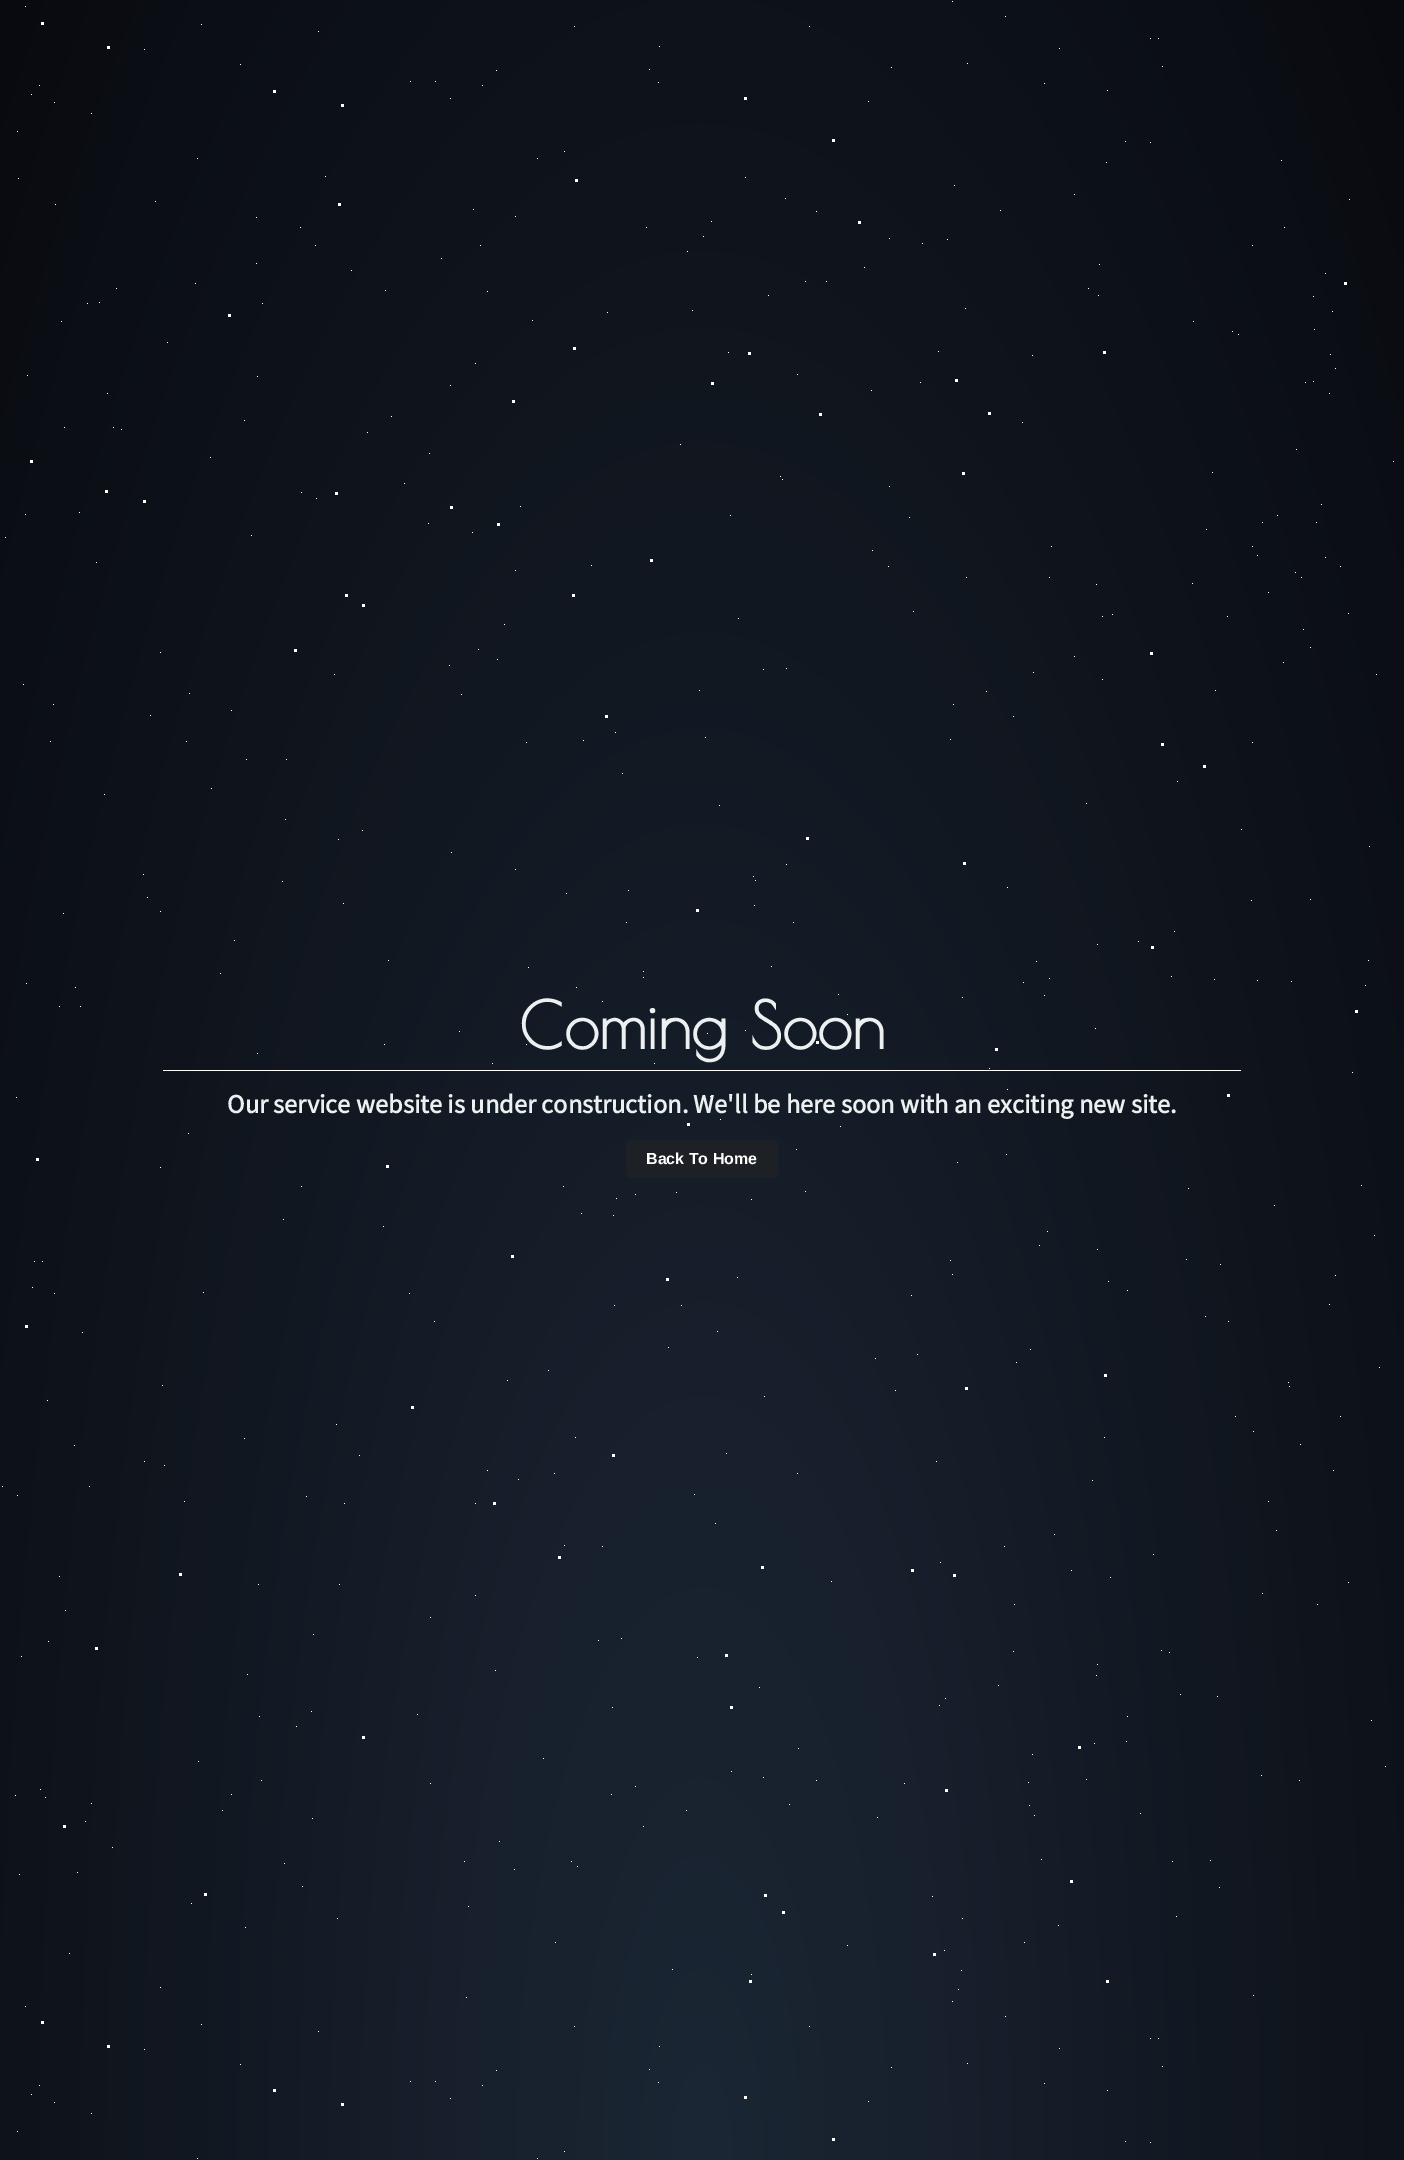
%!PS
<< /PageSize [1404 2160] >> setpagedevice
/rgb { dup -16 bitshift 255 div exch dup -8 bitshift 255 and 255 div exch 255 and 255 div setrgbcolor } def
/font { [ exch dup neg 0 0 3 -1 roll 0 0 ] selectfont } def
/text { moveto show } def
/roundrect { 5 dict begin { /r /h /w /y /x } { exch def } forall
  x r add y moveto x w add y 2 copy h add r arct x w add y h add x 1 index r arct
  x y h add x y r arct x y 2 copy exch w add exch r arct closepath end } def
0 2160 translate 1 -1 scale
4 setmiterlimit
/s1 { /PoiretOne-Bold 64 font 16#ECF0F1 rgb } def
/s2 { /SourceSansPro-Bold 26.4 font 16#ECF0F1 rgb } def
/s3 { /LiberationSans-Bold 16 font 16#FFFFFF rgb } def
16#FFFFFF rgb
0 0 1404 2160 rectfill
gsave 0 0 moveto 1404 0 lineto 1404 2160 lineto 0 2160 lineto closepath clip newpath 702 2160 translate 993 3055 scale
<< /ShadingType 3 /ColorSpace /DeviceRGB /Coords [0 0 0 0 0 1] /Extend [true true] /Function << /FunctionType 2 /Domain [0 1] /C0 [0.106 0.153 0.208] /C1 [0.035 0.039 0.059] /N 1 >> >> shfill grestore
79 512 1 1 rectfill
21 1656 1 1 rectfill
1210 1860 1 1 rectfill
1281 160 1 1 rectfill
1241 829 1 1 rectfill
764 1396 1 1 rectfill
745 1030 1 1 rectfill
344 1503 1 1 rectfill
831 1581 1 1 rectfill
1325 273 1 1 rectfill
1291 981 1 1 rectfill
1252 742 1 1 rectfill
80 1006 1 1 rectfill
649 69 1 1 rectfill
676 1192 1 1 rectfill
1102 616 1 1 rectfill
548 1370 1 1 rectfill
64 427 1 1 rectfill
786 668 1 1 rectfill
1205 1316 1 1 rectfill
728 352 1 1 rectfill
113 427 1 1 rectfill
847 1945 1 1 rectfill
1074 194 1 1 rectfill
1283 662 1 1 rectfill
909 517 1 1 rectfill
1174 931 1 1 rectfill
785 198 1 1 rectfill
244 1438 1 1 rectfill
626 922 1 1 rectfill
54 102 1 1 rectfill
1313 381 1 1 rectfill
50 741 1 1 rectfill
710 1096 1 1 rectfill
468 1906 1 1 rectfill
514 1869 1 1 rectfill
730 515 1 1 rectfill
1333 1470 1 1 rectfill
27 375 1 1 rectfill
1235 1416 1 1 rectfill
1138 941 1 1 rectfill
15 1795 1 1 rectfill
1310 899 1 1 rectfill
574 26 1 1 rectfill
1305 382 1 1 rectfill
282 881 1 1 rectfill
717 1331 1 1 rectfill
311 1711 1 1 rectfill
47 1400 1 1 rectfill
409 1293 1 1 rectfill
965 308 1 1 rectfill
889 486 1 1 rectfill
244 420 1 1 rectfill
197 158 1 1 rectfill
989 1068 1 1 rectfill
300 227 1 1 rectfill
1303 629 1 1 rectfill
478 649 1 1 rectfill
518 1479 1 1 rectfill
1348 613 1 1 rectfill
1180 1694 1 1 rectfill
144 1461 1 1 rectfill
1014 1604 1 1 rectfill
286 759 1 1 rectfill
1092 1480 1 1 rectfill
261 1780 1 1 rectfill
459 1031 1 1 rectfill
1049 577 1 1 rectfill
528 967 1 1 rectfill
1340 1416 1 1 rectfill
63 913 1 1 rectfill
566 893 1 1 rectfill
203 1292 1 1 rectfill
1034 1815 1 1 rectfill
771 966 1 1 rectfill
895 1390 1 1 rectfill
576 987 1 1 rectfill
1253 1431 1 1 rectfill
768 295 1 1 rectfill
258 1584 1 1 rectfill
611 1794 1 1 rectfill
643 971 1 1 rectfill
1047 1231 1 1 rectfill
428 523 1 1 rectfill
563 1186 1 1 rectfill
16 1097 1 1 rectfill
189 693 1 1 rectfill
59 1576 1 1 rectfill
1054 1534 1 1 rectfill
628 890 1 1 rectfill
768 1103 1 1 rectfill
334 674 1 1 rectfill
464 1861 1 1 rectfill
318 31 1 1 rectfill
301 1186 1 1 rectfill
755 880 1 1 rectfill
526 742 1 1 rectfill
658 82 1 1 rectfill
1024 1942 1 1 rectfill
877 1817 1 1 rectfill
1007 887 1 1 rectfill
1028 1782 1 1 rectfill
692 310 1 1 rectfill
1374 1235 1 1 rectfill
920 382 1 1 rectfill
602 1546 1 1 rectfill
1277 515 1 1 rectfill
492 1063 1 1 rectfill
1098 295 1 1 rectfill
953 704 1 1 rectfill
681 1305 1 1 rectfill
1171 976 1 1 rectfill
1104 1437 1 1 rectfill
1368 960 1 1 rectfill
1039 1245 1 1 rectfill
816 211 1 1 rectfill
780 476 1 1 rectfill
17 131 1 1 rectfill
451 852 1 1 rectfill
917 1354 1 1 rectfill
1227 616 1 1 rectfill
507 1380 1 1 rectfill
246 759 1 1 rectfill
104 794 1 1 rectfill
82 1332 1 1 rectfill
707 1033 1 1 rectfill
262 303 1 1 rectfill
150 715 1 1 rectfill
1228 1321 1 1 rectfill
532 320 1 1 rectfill
1086 1779 1 1 rectfill
615 732 1 1 rectfill
613 1215 1 1 rectfill
668 1347 1 1 rectfill
962 1918 1 1 rectfill
55 204 1 1 rectfill
391 416 1 1 rectfill
1284 227 1 1 rectfill
751 1199 1 1 rectfill
1158 38 1 1 rectfill
1032 355 1 1 rectfill
793 922 1 1 rectfill
904 1783 1 1 rectfill
952 1274 1 1 rectfill
998 1685 1 1 rectfill
1215 690 1 1 rectfill
336 1424 1 1 rectfill
575 1437 1 1 rectfill
936 1461 1 1 rectfill
65 1610 1 1 rectfill
316 498 1 1 rectfill
745 177 1 1 rectfill
198 1761 1 1 rectfill
211 788 1 1 rectfill
738 618 1 1 rectfill
384 1044 1 1 rectfill
957 1162 1 1 rectfill
367 432 1 1 rectfill
555 1942 1 1 rectfill
1007 1089 1 1 rectfill
1316 522 1 1 rectfill
1299 1780 1 1 rectfill
296 1726 1 1 rectfill
1385 1766 1 1 rectfill
48 1641 1 1 rectfill
1150 142 1 1 rectfill
798 1748 1 1 rectfill
87 303 1 1 rectfill
257 1053 1 1 rectfill
1295 572 1 1 rectfill
23 684 1 1 rectfill
950 1260 1 1 rectfill
351 270 1 1 rectfill
1217 1696 1 1 rectfill
754 905 1 1 rectfill
1126 1741 1 1 rectfill
1022 422 1 1 rectfill
25 514 1 1 rectfill
1106 162 1 1 rectfill
537 158 1 1 rectfill
1340 566 1 1 rectfill
1321 504 1 1 rectfill
616 1198 1 1 rectfill
1253 1995 1 1 rectfill
622 773 1 1 rectfill
922 243 1 1 rectfill
672 1969 1 1 rectfill
1006 1154 1 1 rectfill
1074 656 1 1 rectfill
598 1640 1 1 rectfill
1268 1501 1 1 rectfill
77 1872 1 1 rectfill
1071 1570 1 1 rectfill
737 1277 1 1 rectfill
1261 1775 1 1 rectfill
1369 846 1 1 rectfill
53 704 1 1 rectfill
888 566 1 1 rectfill
711 221 1 1 rectfill
961 1970 1 1 rectfill
1329 1304 1 1 rectfill
339 1584 1 1 rectfill
847 1014 1 1 rectfill
1005 16 1 1 rectfill
1044 995 1 1 rectfill
1220 1264 1 1 rectfill
42 1261 1 1 rectfill
1097 1664 1 1 rectfill
646 227 1 1 rectfill
1206 529 1 1 rectfill
69 1953 1 1 rectfill
1349 199 1 1 rectfill
809 26 1 1 rectfill
257 376 1 1 rectfill
1125 141 1 1 rectfill
160 1167 1 1 rectfill
1329 393 1 1 rectfill
612 1707 1 1 rectfill
475 1503 1 1 rectfill
1029 1805 1 1 rectfill
147 897 1 1 rectfill
91 113 1 1 rectfill
1238 334 1 1 rectfill
720 1119 1 1 rectfill
1095 1028 1 1 rectfill
234 940 1 1 rectfill
515 570 1 1 rectfill
121 429 1 1 rectfill
247 1674 1 1 rectfill
34 1261 1 1 rectfill
753 876 1 1 rectfill
1051 546 1 1 rectfill
1033 672 1 1 rectfill
1153 1554 1 1 rectfill
96 562 1 1 rectfill
1257 980 1 1 rectfill
1177 781 1 1 rectfill
1186 1259 1 1 rectfill
635 1786 1 1 rectfill
359 1455 1 1 rectfill
954 185 1 1 rectfill
430 1783 1 1 rectfill
74 1445 1 1 rectfill
891 67 1 1 rectfill
868 101 1 1 rectfill
383 1226 1 1 rectfill
1268 592 1 1 rectfill
1296 449 1 1 rectfill
687 251 1 1 rectfill
583 740 1 1 rectfill
337 1918 1 1 rectfill
838 994 1 1 rectfill
659 46 1 1 rectfill
338 839 1 1 rectfill
19 1874 1 1 rectfill
429 453 1 1 rectfill
875 1358 1 1 rectfill
805 281 1 1 rectfill
155 201 1 1 rectfill
1032 1754 1 1 rectfill
950 739 1 1 rectfill
32 1287 1 1 rectfill
763 669 1 1 rectfill
840 1126 1 1 rectfill
1251 900 1 1 rectfill
1332 311 1 1 rectfill
1096 1675 1 1 rectfill
564 151 1 1 rectfill
1252 546 1 1 rectfill
577 1866 1 1 rectfill
17 1495 1 1 rectfill
1097 944 1 1 rectfill
40 1789 1 1 rectfill
91 1803 1 1 rectfill
313 1634 1 1 rectfill
864 267 1 1 rectfill
726 1453 1 1 rectfill
1127 1290 1 1 rectfill
515 869 1 1 rectfill
1232 331 1 1 rectfill
497 659 1 1 rectfill
1335 1275 1 1 rectfill
643 977 1 1 rectfill
763 1777 1 1 rectfill
18 178 1 1 rectfill
947 239 1 1 rectfill
1013 1651 1 1 rectfill
59 1006 1 1 rectfill
404 483 1 1 rectfill
188 1133 1 1 rectfill
1300 1444 1 1 rectfill
256 263 1 1 rectfill
1086 803 1 1 rectfill
1365 985 1 1 rectfill
1212 472 1 1 rectfill
1088 288 1 1 rectfill
325 176 1 1 rectfill
1127 1716 1 1 rectfill
1262 1593 1 1 rectfill
1044 83 1 1 rectfill
932 1896 1 1 rectfill
466 1997 1 1 rectfill
472 532 1 1 rectfill
872 550 1 1 rectfill
1379 1367 1 1 rectfill
889 238 1 1 rectfill
504 624 1 1 rectfill
571 1861 1 1 rectfill
1289 1386 1 1 rectfill
751 1974 1 1 rectfill
89 1486 1 1 rectfill
449 665 1 1 rectfill
705 737 1 1 rectfill
1330 354 1 1 rectfill
1192 583 1 1 rectfill
1176 1916 1 1 rectfill
487 1470 1 1 rectfill
1257 555 1 1 rectfill
1310 647 1 1 rectfill
1150 38 1 1 rectfill
5 537 1 1 rectfill
191 1903 1 1 rectfill
164 1465 1 1 rectfill
99 302 1 1 rectfill
564 1545 1 1 rectfill
515 216 1 1 rectfill
410 81 1 1 rectfill
1313 296 1 1 rectfill
210 457 1 1 rectfill
450 385 1 1 rectfill
116 288 1 1 rectfill
473 209 1 1 rectfill
306 1496 1 1 rectfill
186 741 1 1 rectfill
789 1804 1 1 rectfill
1099 264 1 1 rectfill
144 49 1 1 rectfill
797 1473 1 1 rectfill
1041 1859 1 1 rectfill
826 281 1 1 rectfill
45 1797 1 1 rectfill
654 1063 1 1 rectfill
680 444 1 1 rectfill
301 492 1 1 rectfill
1335 368 1 1 rectfill
699 690 1 1 rectfill
25 6 1 1 rectfill
694 1494 1 1 rectfill
1301 577 1 1 rectfill
686 1810 1 1 rectfill
231 1794 1 1 rectfill
312 1818 1 1 rectfill
388 960 1 1 rectfill
385 290 1 1 rectfill
1169 1652 1 1 rectfill
1325 557 1 1 rectfill
201 24 1 1 rectfill
222 1810 1 1 rectfill
643 1826 1 1 rectfill
911 1295 1 1 rectfill
526 1044 1 1 rectfill
944 1950 1 1 rectfill
581 1213 1 1 rectfill
450 98 1 1 rectfill
1188 1188 1 1 rectfill
1348 1582 1 1 rectfill
1140 1813 1 1 rectfill
938 351 1 1 rectfill
782 479 1 1 rectfill
1314 329 1 1 rectfill
1102 679 1 1 rectfill
607 312 1 1 rectfill
220 973 1 1 rectfill
240 64 1 1 rectfill
1193 321 1 1 rectfill
85 1821 1 1 rectfill
26 983 1 1 rectfill
1393 461 1 1 rectfill
1371 1720 1 1 rectfill
759 1687 1 1 rectfill
1049 978 1 1 rectfill
1030 1349 1 1 rectfill
1112 614 1 1 rectfill
554 1473 1 1 rectfill
482 85 1 1 rectfill
430 1617 1 1 rectfill
945 1698 1 1 rectfill
967 63 1 1 rectfill
913 611 1 1 rectfill
259 1716 1 1 rectfill
434 1321 1 1 rectfill
231 710 1 1 rectfill
54 1293 1 1 rectfill
1214 979 1 1 rectfill
1036 961 1 1 rectfill
1016 1362 1 1 rectfill
940 1562 1 1 rectfill
786 864 1 1 rectfill
805 1191 1 1 rectfill
499 1841 1 1 rectfill
1262 522 1 1 rectfill
302 1886 1 1 rectfill
602 1001 1 1 rectfill
435 81 1 1 rectfill
697 1657 1 1 rectfill
31 94 1 1 rectfill
107 393 1 1 rectfill
1013 716 1 1 rectfill
731 1771 1 1 rectfill
1107 90 1 1 rectfill
496 70 1 1 rectfill
487 291 1 1 rectfill
160 911 1 1 rectfill
475 363 1 1 rectfill
1161 1650 1 1 rectfill
1059 48 1 1 rectfill
162 1385 1 1 rectfill
112 1847 1 1 rectfill
543 1758 1 1 rectfill
1162 66 1 1 rectfill
475 1595 1 1 rectfill
715 1523 1 1 rectfill
245 1927 1 1 rectfill
816 1780 1 1 rectfill
285 819 1 1 rectfill
480 245 1 1 rectfill
1219 1887 1 1 rectfill
441 258 1 1 rectfill
315 245 1 1 rectfill
1096 584 1 1 rectfill
461 694 1 1 rectfill
1094 1743 1 1 rectfill
1097 1249 1 1 rectfill
1172 1861 1 1 rectfill
167 342 1 1 rectfill
614 1305 1 1 rectfill
160 652 1 1 rectfill
283 1219 1 1 rectfill
962 997 1 1 rectfill
621 1638 1 1 rectfill
195 283 1 1 rectfill
1376 674 1 1 rectfill
417 1714 1 1 rectfill
1000 210 1 1 rectfill
520 506 1 1 rectfill
1004 1546 1 1 rectfill
635 1194 1 1 rectfill
256 217 1 1 rectfill
75 987 1 1 rectfill
958 1989 1 1 rectfill
1276 1530 1 1 rectfill
251 535 1 1 rectfill
362 830 1 1 rectfill
939 1705 1 1 rectfill
143 874 1 1 rectfill
343 903 1 1 rectfill
1252 245 1 1 rectfill
703 236 1 1 rectfill
1317 1604 1 1 rectfill
591 565 1 1 rectfill
719 805 1 1 rectfill
2 1486 1 1 rectfill
986 691 1 1 rectfill
495 1670 1 1 rectfill
39 85 1 1 rectfill
1274 1205 1 1 rectfill
160 1987 1 1 rectfill
1058 1925 1 1 rectfill
1110 1577 1 1 rectfill
1361 1185 1 1 rectfill
952 1 1 1 rectfill
796 1149 1 1 rectfill
797 374 1 1 rectfill
1108 1281 1 1 rectfill
61 321 1 1 rectfill
871 390 1 1 rectfill
284 1863 1 1 rectfill
966 577 1 1 rectfill
1352 1072 1 1 rectfill
184 1501 1 1 rectfill
1023 982 1 1 rectfill
1288 1382 1 1 rectfill
649 2069 1 1 rectfill
54 2102 1 1 rectfill
574 2026 1 1 rectfill
197 2158 1 1 rectfill
318 2031 1 1 rectfill
658 2082 1 1 rectfill
17 2131 1 1 rectfill
1158 2038 1 1 rectfill
1150 2142 1 1 rectfill
537 2158 1 1 rectfill
1005 2016 1 1 rectfill
809 2026 1 1 rectfill
1125 2141 1 1 rectfill
91 2113 1 1 rectfill
891 2067 1 1 rectfill
868 2101 1 1 rectfill
659 2046 1 1 rectfill
564 2151 1 1 rectfill
1044 2083 1 1 rectfill
1150 2038 1 1 rectfill
410 2081 1 1 rectfill
144 2049 1 1 rectfill
25 2006 1 1 rectfill
201 2024 1 1 rectfill
450 2098 1 1 rectfill
240 2064 1 1 rectfill
482 2085 1 1 rectfill
967 2063 1 1 rectfill
435 2081 1 1 rectfill
31 2094 1 1 rectfill
1107 2090 1 1 rectfill
496 2070 1 1 rectfill
1059 2048 1 1 rectfill
1162 2066 1 1 rectfill
39 2085 1 1 rectfill
952 2001 1 1 rectfill
273 90 3 3 rectfill
858 221 3 3 rectfill
411 1406 3 3 rectfill
806 837 3 3 rectfill
105 490 3 3 rectfill
362 1736 3 3 rectfill
335 492 3 3 rectfill
749 1980 3 3 rectfill
605 715 3 3 rectfill
362 604 3 3 rectfill
1070 1880 3 3 rectfill
725 1654 3 3 rectfill
953 1574 3 3 rectfill
30 460 3 3 rectfill
730 1706 3 3 rectfill
748 352 3 3 rectfill
41 22 3 3 rectfill
666 1278 3 3 rectfill
711 382 3 3 rectfill
1078 1746 3 3 rectfill
962 472 3 3 rectfill
493 1502 3 3 rectfill
933 1953 3 3 rectfill
911 1569 3 3 rectfill
1355 1010 3 3 rectfill
955 379 3 3 rectfill
294 649 3 3 rectfill
1227 1094 3 3 rectfill
696 909 3 3 rectfill
1103 351 3 3 rectfill
345 594 3 3 rectfill
107 46 3 3 rectfill
1151 946 3 3 rectfill
573 347 3 3 rectfill
612 1454 3 3 rectfill
575 179 3 3 rectfill
963 862 3 3 rectfill
143 500 3 3 rectfill
572 594 3 3 rectfill
995 1048 3 3 rectfill
764 1894 3 3 rectfill
1161 743 3 3 rectfill
450 506 3 3 rectfill
341 104 3 3 rectfill
816 1041 3 3 rectfill
512 400 3 3 rectfill
687 1123 3 3 rectfill
988 412 3 3 rectfill
179 1573 3 3 rectfill
511 1255 3 3 rectfill
744 97 3 3 rectfill
497 523 3 3 rectfill
228 314 3 3 rectfill
204 1893 3 3 rectfill
1203 765 3 3 rectfill
338 203 3 3 rectfill
63 1825 3 3 rectfill
1150 652 3 3 rectfill
36 1158 3 3 rectfill
386 1165 3 3 rectfill
819 413 3 3 rectfill
832 139 3 3 rectfill
1344 282 3 3 rectfill
945 1789 3 3 rectfill
761 1566 3 3 rectfill
965 1387 3 3 rectfill
1104 1374 3 3 rectfill
95 1647 3 3 rectfill
782 1911 3 3 rectfill
558 1556 3 3 rectfill
650 559 3 3 rectfill
25 1325 3 3 rectfill
1106 1980 3 3 rectfill
273 2089 3 3 rectfill
41 2021 3 3 rectfill
107 2045 3 3 rectfill
341 2103 3 3 rectfill
744 2096 3 3 rectfill
832 2138 3 3 rectfill
s1
(Coming Soon) 519 1049 text
16#FFFFFF rgb
163 1070 1078 1 rectfill
s2
(Our service website is under construction. We'll be here soon with an exciting new site.) 227 1113 text
16#1D2024 rgb
626 1140 152 38 5 roundrect fill
s3
(Back To Home) 646 1164 text
showpage
